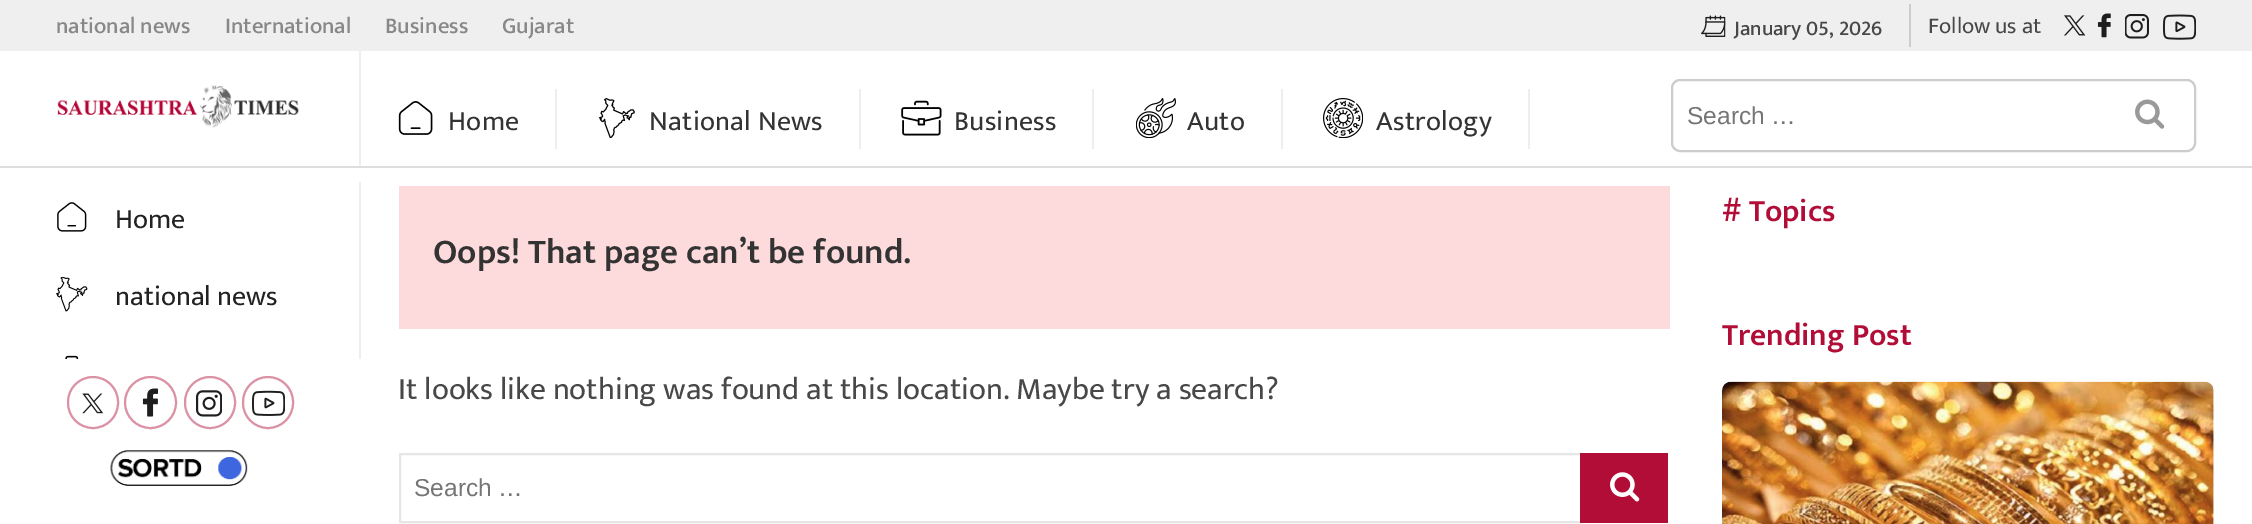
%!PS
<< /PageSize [2252 524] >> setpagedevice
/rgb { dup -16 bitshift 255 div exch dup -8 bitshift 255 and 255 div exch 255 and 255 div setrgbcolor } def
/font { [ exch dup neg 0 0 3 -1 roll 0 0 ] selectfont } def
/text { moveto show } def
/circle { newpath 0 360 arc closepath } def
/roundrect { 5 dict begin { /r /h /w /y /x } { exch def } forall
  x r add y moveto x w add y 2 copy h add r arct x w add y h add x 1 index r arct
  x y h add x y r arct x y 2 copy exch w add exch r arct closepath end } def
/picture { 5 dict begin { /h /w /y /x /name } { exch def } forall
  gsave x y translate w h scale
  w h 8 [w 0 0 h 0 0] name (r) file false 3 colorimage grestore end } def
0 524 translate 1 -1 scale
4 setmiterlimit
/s1 { /Mukta-Medium 22.75 font 16#888888 rgb } def
/s2 { /Mukta-Medium 21 font 16#484848 rgb } def
/s3 { /Mukta-Regular 22.75 font 16#484848 rgb } def
/s4 { /LiberationSans-Regular 24.5 font 16#757575 rgb } def
/s5 { /Mukta-Regular 28 font 16#222222 rgb } def
/s6 { /Mukta-SemiBold 35 font 16#333333 rgb } def
/s7 { /Mukta-Regular 31.5 font 16#484848 rgb } def
/s8 { /Mukta-SemiBold 31.5 font 16#B20D37 rgb } def
16#FFFFFF rgb
0 0 2252 524 rectfill
16#EFEFEF rgb
0 0 2252 51 rectfill
s1
(national news) 56 33 text
(International) 225 33 text
(Business) 385 33 text
(Gujarat) 502 33 text
(pic1.raw) 1701 15 25 22 picture
s2
(January 05, 2026) 1734 35 text
16#CCCCCC rgb
1909 4 2 43 rectfill
s3
(Follow us at) 1928 33 text
(pic2.raw) 2064 15 22 21 picture
(pic3.raw) 2097 13 14 25 picture
(pic4.raw) 2125 14 24 25 picture
(pic5.raw) 2163 14 33 26 picture
16#DDDDDD rgb
0 166 2252 2 rectfill
16#EEEEEE rgb
359 51 2 115 rectfill
(pic6.raw) 57 85 242 43 picture
555 89 2 60 rectfill
(pic7.raw) 398 101 35 34 picture
/Mukta-Regular 28 font
16#333333 rgb
448 130 moveto 0.3 0 (Home) ashow
16#EEEEEE rgb
859 89 2 60 rectfill
(pic8.raw) 598 98 37 40 picture
16#333333 rgb
649 130 moveto 0.3 0 (National News) ashow
16#EEEEEE rgb
1092 89 2 60 rectfill
(pic9.raw) 901 100 41 36 picture
16#333333 rgb
954 130 moveto 0.3 0 (Business) ashow
16#EEEEEE rgb
1281 89 2 60 rectfill
(pic10.raw) 1136 98 40 40 picture
16#333333 rgb
1187 130 moveto 0.3 0 (Auto) ashow
16#EEEEEE rgb
1528 89 2 60 rectfill
(pic11.raw) 1323 98 40 40 picture
16#333333 rgb
1376 130 moveto 0.3 0 (Astrology) ashow
16#CCCCCC rgb
2 setlinewidth
1672 80 523 71 8 roundrect stroke
s4
(Search …) 1687 124 text
(pic12.raw) 2135 99 30 30 picture
16#EEEEEE rgb
359 182 2 177 rectfill
(pic13.raw) 57 202 30 30 picture
s5
(Home) 115 228 text
(pic14.raw) 56 277 32 35 picture
(national news) 115 305 text
(pic15.raw) 65 355 14 4 picture
16#DC92A5 rgb
68 377 50 51 25 roundrect stroke
(pic16.raw) 82 393 22 21 picture
150.5 402.5 25.5 circle stroke
(pic17.raw) 142 388 17 29 picture
185 377 50 51 25 roundrect stroke
(pic18.raw) 196 390 26 27 picture
243 377 50 51 25 roundrect stroke
(pic19.raw) 252 390 33 26 picture
(pic20.raw) 110 450 138 36 picture
16#FDDBDD rgb
399 186 1271 143 rectfill
s6
(Oops! That page can’t be found.) 433 263 text
s7
(It looks like nothing was found at this location. Maybe try a search?) 398 399 text
16#E6E6E6 rgb
400 454 1181 68 rectstroke
s4
(Search …) 414 496 text
16#B20D37 rgb
1580 453 88 70 rectfill
(pic21.raw) 1610 472 30 30 picture
s8
(# Topics) 1722 221 text
(Trending Post) 1722 345 text
(pic22.raw) 1722 381 492 143 picture
showpage
